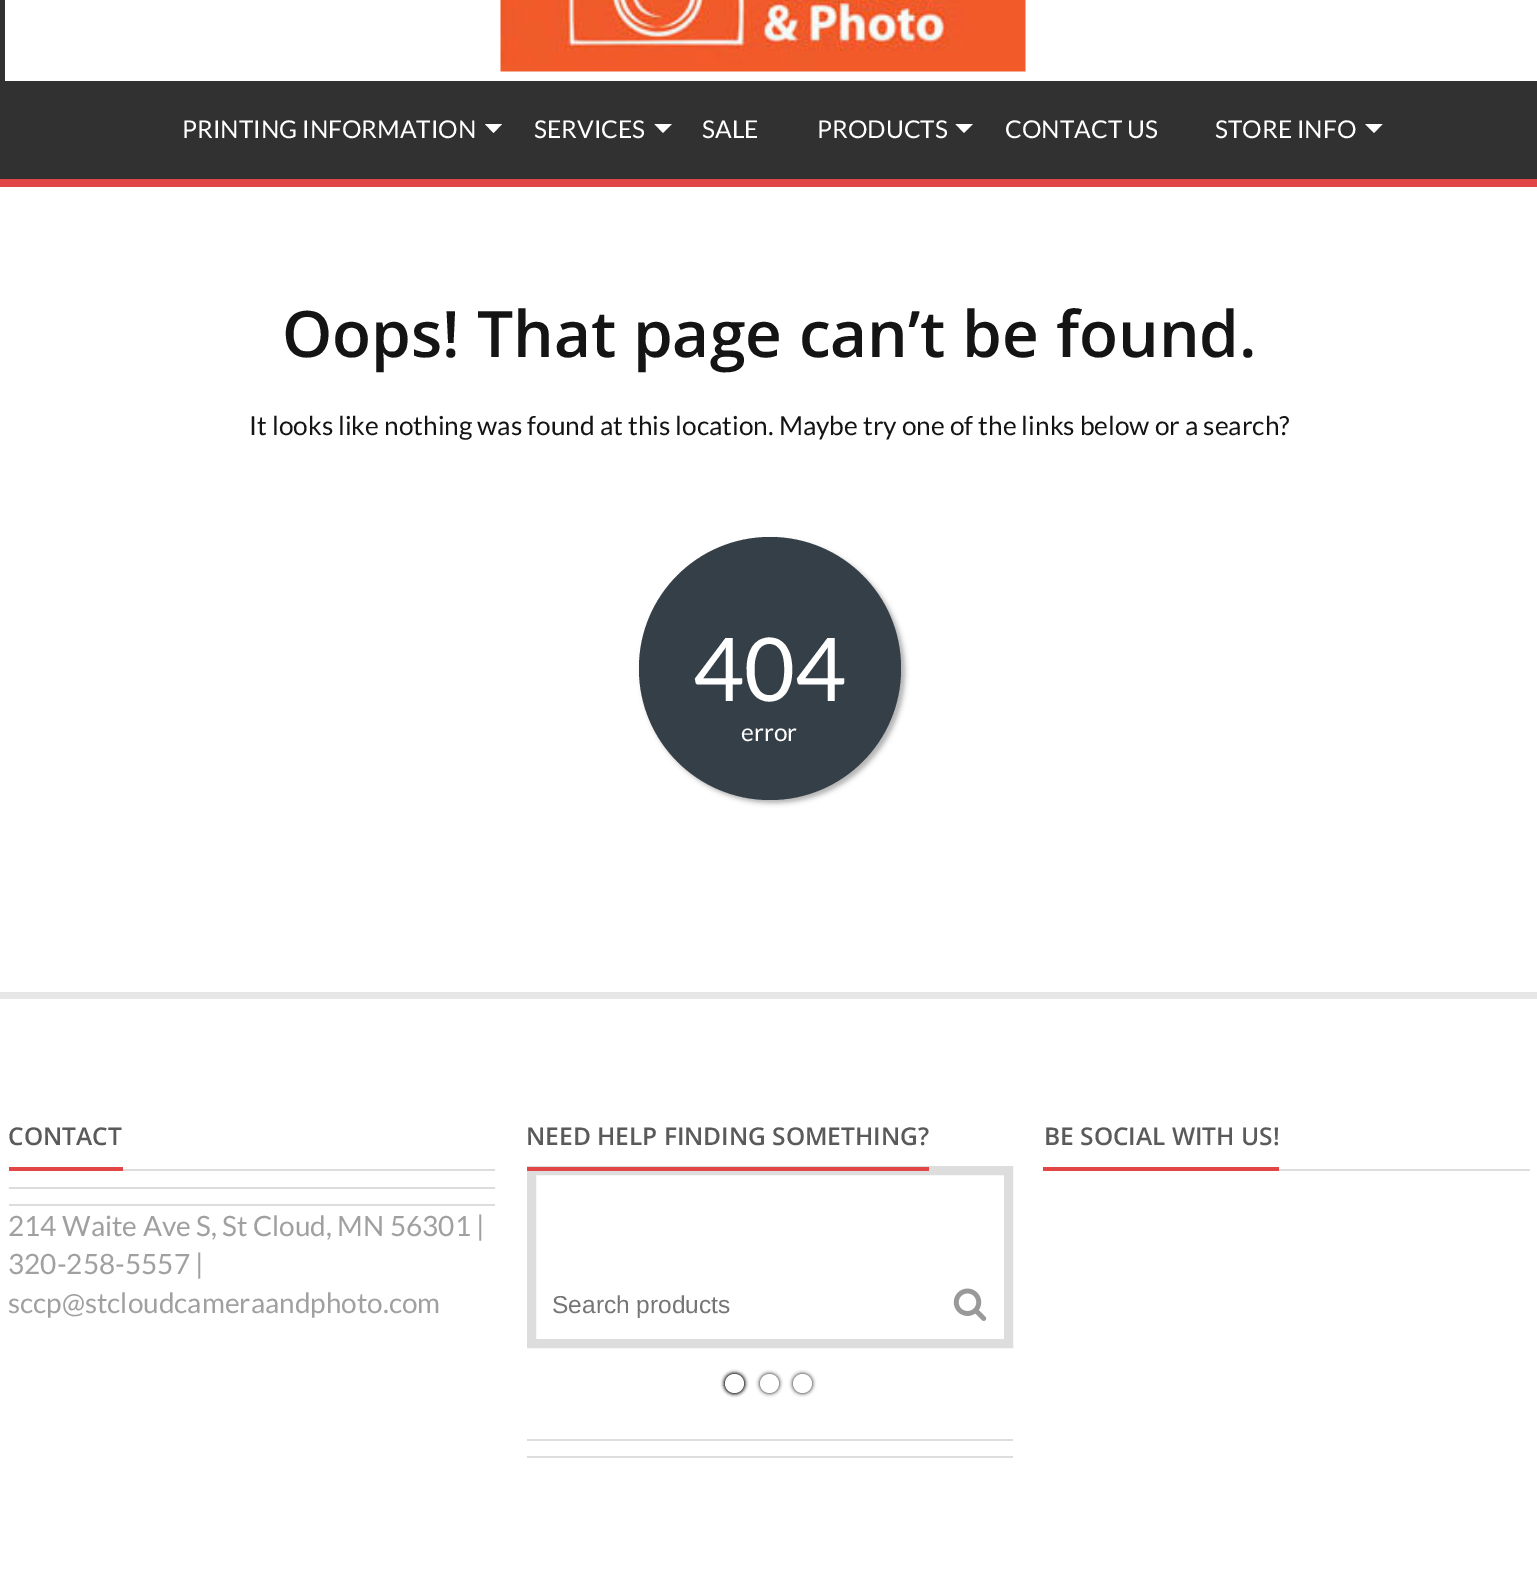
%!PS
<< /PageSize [1537 1579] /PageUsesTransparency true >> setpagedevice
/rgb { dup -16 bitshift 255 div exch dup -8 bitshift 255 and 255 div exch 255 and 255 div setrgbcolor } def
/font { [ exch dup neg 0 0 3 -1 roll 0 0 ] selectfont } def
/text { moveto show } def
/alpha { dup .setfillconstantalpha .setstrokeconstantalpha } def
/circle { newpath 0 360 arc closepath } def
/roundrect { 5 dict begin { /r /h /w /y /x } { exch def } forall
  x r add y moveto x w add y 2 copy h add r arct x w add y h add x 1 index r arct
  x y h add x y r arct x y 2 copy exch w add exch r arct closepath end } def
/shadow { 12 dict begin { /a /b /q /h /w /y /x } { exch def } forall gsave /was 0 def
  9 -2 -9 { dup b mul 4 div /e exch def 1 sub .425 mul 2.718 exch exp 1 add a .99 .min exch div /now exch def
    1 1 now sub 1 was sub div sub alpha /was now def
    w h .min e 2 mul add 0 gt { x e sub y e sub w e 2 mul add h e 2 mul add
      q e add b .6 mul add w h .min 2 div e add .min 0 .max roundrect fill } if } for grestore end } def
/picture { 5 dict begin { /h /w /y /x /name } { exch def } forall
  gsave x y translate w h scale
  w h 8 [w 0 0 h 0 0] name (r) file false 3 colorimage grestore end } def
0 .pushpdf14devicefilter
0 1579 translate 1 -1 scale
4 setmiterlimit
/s1 { /Lato-Regular 24.5 font 16#FFFFFF rgb } def
/s2 { /OpenSans-SemiBold 64 font 16#141414 rgb } def
/s3 { /Lato-Regular 26.25 font 16#141414 rgb } def
/s4 { /Lato-Regular 88 font 16#FFFFFF rgb } def
/s5 { /OpenSans-SemiBold 24.5 font 16#5A5A5A rgb } def
/s6 { /Lato-Regular 28 font 16#A0A0A0 rgb } def
/s7 { /LiberationSans-Regular 24.5 font 16#757575 rgb } def
16#FFFFFF rgb
0 0 1537 1579 rectfill
16#E24545 rgb
0 179 1537 8 rectfill
(pic1.raw) 500 0 526 72 picture
16#313131 rgb
5 81 1532 98 rectfill
0 0 5 179 rectfill
s1
(PRINTING INFORMATION) 182 138 text
485 124 moveto 502 124 lineto 493.5 133 lineto closepath fill
(SERVICES) 534 138 text
654.5 124 moveto 672 124 lineto 663 133 lineto closepath fill
(SALE) 702 138 text
(PRODUCTS) 817 138 text
955.5 124 moveto 973 124 lineto 964 133 lineto closepath fill
(CONTACT US) 1005 138 text
(STORE INFO) 1215 138 text
1365 124 moveto 1382.5 124 lineto 1374 133 lineto closepath fill
16#E7E7E7 rgb
0 992 1537 7 rectfill
s2
(Oops! That page can’t be found.) 282 357 text
s3
(It looks like nothing was found at this location. Maybe try one of the links below or a search?) 249 435 text
16#000000 rgb
642 541 263 262 131 2.5 0.3 shadow
16#353F47 rgb
639 537 262 263 131 roundrect fill
s4
(404) 693 701 text
s1
(error) 741 741 text
16#E24545 rgb
9 1167 114 4 rectfill
s5
(CONTACT) 8 1145 text
s6
(214 Waite Ave S, St Cloud, MN 56301 |) 8 1236 text
(320-258-5557 |) 8 1274 text
(sccp@stcloudcameraandphoto.com) 8 1313 text
16#DDDDDD rgb
123 1169 372 2 rectfill
9 1187 486 2 rectfill
9 1204 486 2 rectfill
9 setlinewidth
531.5 1170.5 477 173 rectstroke
16#E24545 rgb
527 1167 402 4 rectfill
s5
(NEED HELP FINDING SOMETHING?) 526 1145 text
s7
(Search products) 552 1313 text
(pic2.raw) 953 1288 34 33 picture
16#000000 rgb
725 1374 19 19 9.5 2 1 shadow
725 1374 19 19 9.5 2 1 shadow
16#FFFFFF rgb
734.5 1383.5 9.5 circle fill
16#000000 rgb
760 1374 19 19 9.5 2 1 shadow
16#FFFFFF rgb
769.5 1383.5 9.5 circle fill
16#000000 rgb
793 1374 19 19 9.5 2 1 shadow
16#FFFFFF rgb
802.5 1383.5 9.5 circle fill
16#DDDDDD rgb
527 1439 486 2 rectfill
527 1456 486 2 rectfill
16#E24545 rgb
1043 1167 236 4 rectfill
s5
(BE SOCIAL WITH US!) 1044 1145 text
16#DDDDDD rgb
1279 1169 251 2 rectfill
.poppdf14devicefilter showpage
